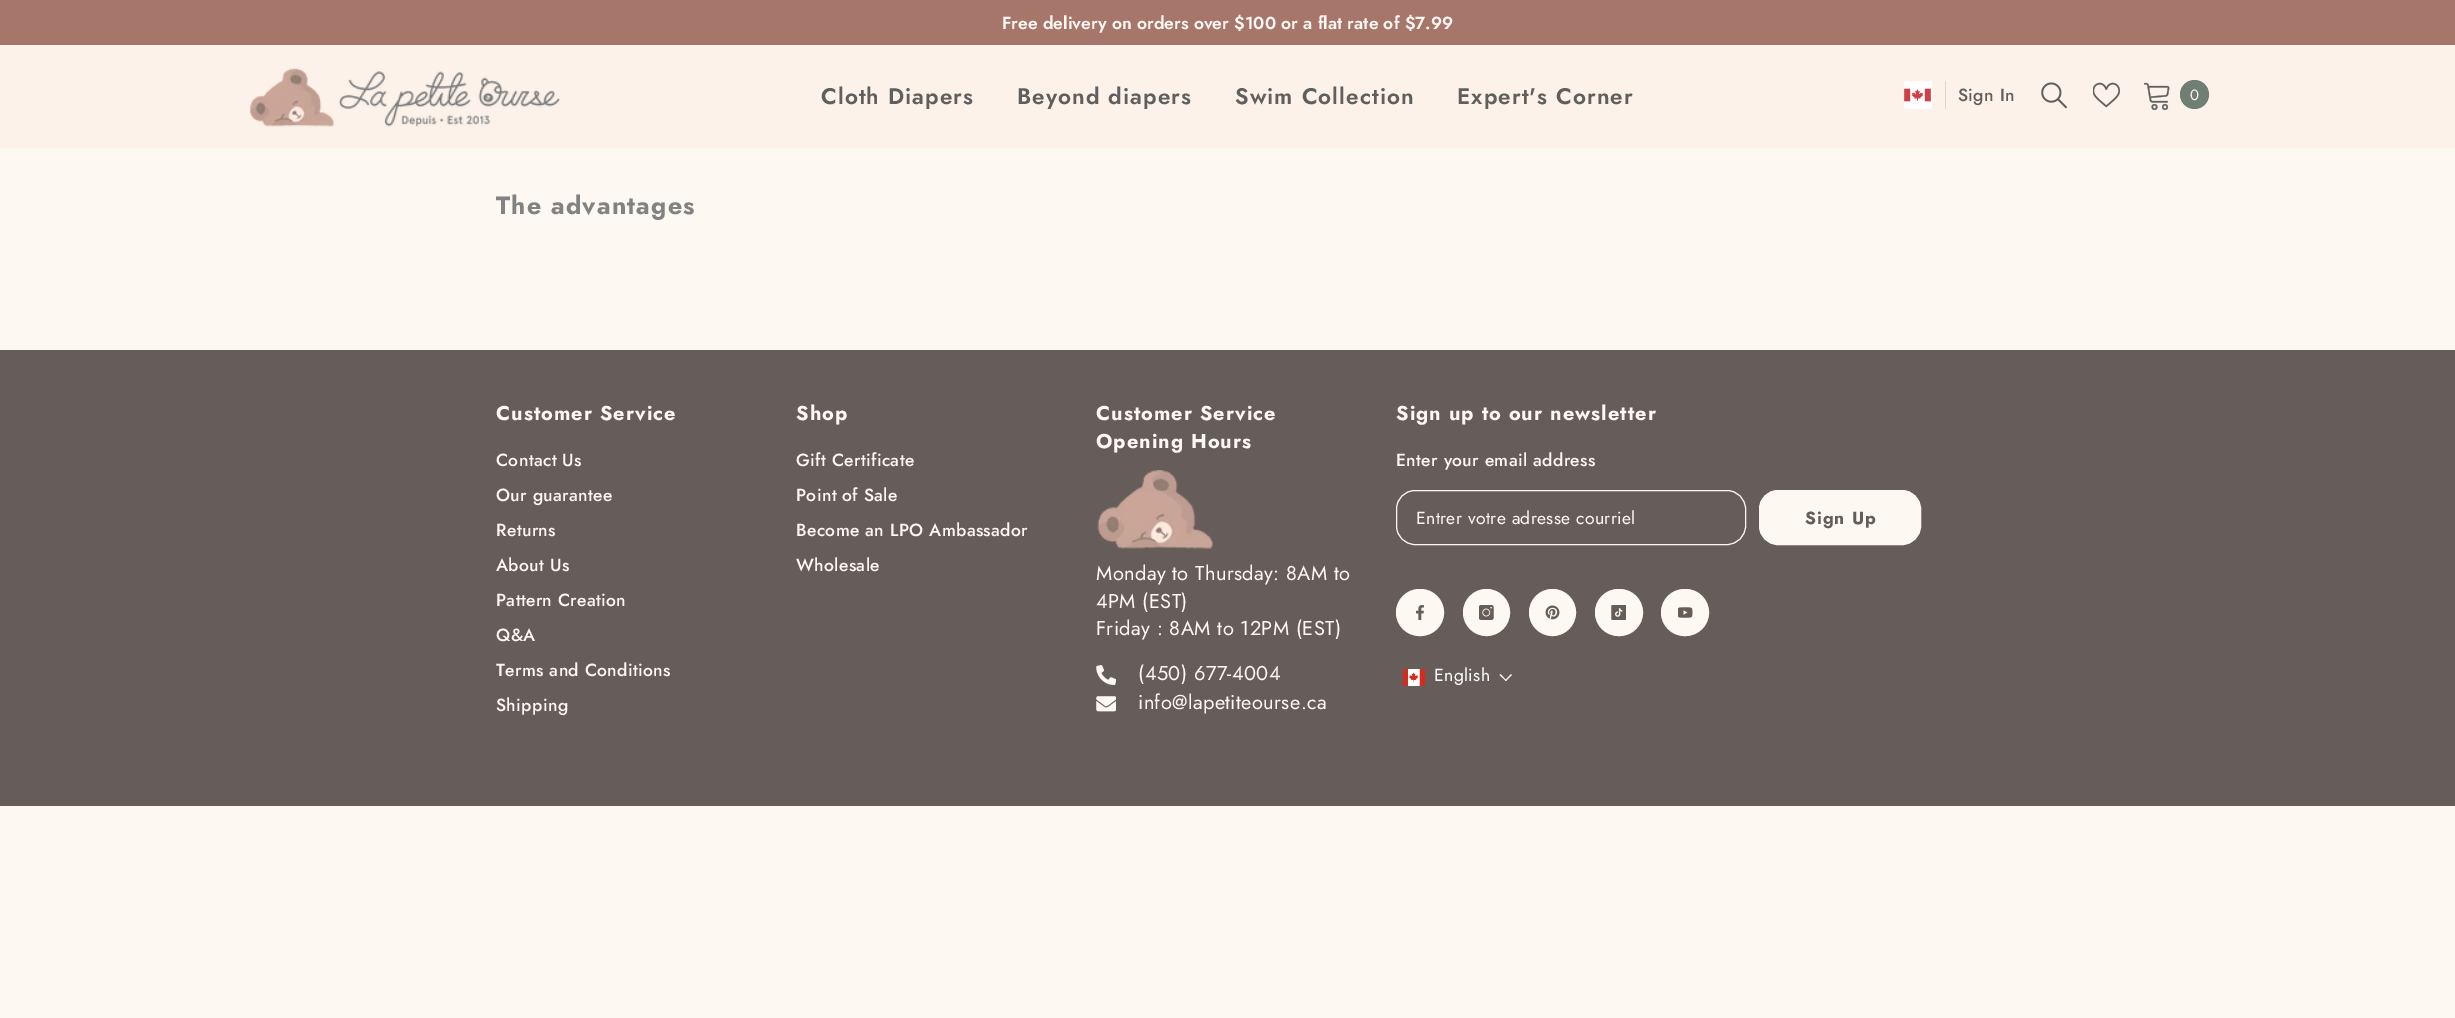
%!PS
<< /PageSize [2455 1018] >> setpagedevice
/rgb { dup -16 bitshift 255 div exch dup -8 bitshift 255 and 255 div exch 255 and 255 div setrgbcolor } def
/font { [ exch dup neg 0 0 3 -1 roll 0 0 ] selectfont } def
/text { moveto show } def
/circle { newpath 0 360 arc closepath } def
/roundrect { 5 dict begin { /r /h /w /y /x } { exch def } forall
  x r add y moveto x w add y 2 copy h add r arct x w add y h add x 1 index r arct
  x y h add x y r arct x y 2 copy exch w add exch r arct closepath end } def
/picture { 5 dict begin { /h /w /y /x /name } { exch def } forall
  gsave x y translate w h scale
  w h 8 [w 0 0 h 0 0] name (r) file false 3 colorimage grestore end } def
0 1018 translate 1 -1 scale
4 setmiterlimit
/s1 { /Jost-SemiBold 17.5 font 16#FFF8F3 rgb } def
/s2 { /Jost-Regular 15 font 16#FFF8F3 rgb } def
16#FEF8F3 rgb
0 0 2455 1018 rectfill
16#A6766A rgb
0 0 2455 45 rectfill
s1
(Free delivery on orders over $100 or a flat rate of $7.99) 1002 29 text
16#FCF2E9 rgb
0 45 2455 103 rectfill
(pic1.raw) 249 68 312 59 picture
/Jost-SemiBold 22.5 font
16#5F5F5E rgb
821 104 moveto 1.1 0 (Cloth Diapers) ashow
1017 104 moveto 1.1 0 (Beyond diapers) ashow
1235 104 moveto 1.1 0 (Swim Collection) ashow
1457 104 moveto 1.1 0 (Expert's Corner) ashow
(pic2.raw) 1904 81 28 28 picture
16#DDD5CD rgb
1945 81 1 28 rectfill
/Jost-Medium 17.5 font
16#5F5F5E rgb
1958 101 moveto 0.35 0 (Sign In) ashow
(pic3.raw) 2041 82 27 27 picture
(pic4.raw) 2093 82 27 26 picture
(pic5.raw) 2143 82 27 28 picture
16#6F7F73 rgb
2194.5 94.5 14.5 circle fill
s2
(0) 2190 100 text
/Jost-Bold 25 font
16#828282 rgb
496 214 moveto 1.25 0 (The advantages) ashow
16#665D5A rgb
0 350 2455 456 rectfill
/Jost-Bold 20 font
16#FFF8F3 rgb
496 420 moveto 1 0 (Customer Service) ashow
/Jost-Medium 17.5 font
496 466 moveto 0.35 0 (Contact Us) ashow
496 501 moveto 0.35 0 (Our guarantee) ashow
496 536 moveto 0.35 0 (Returns) ashow
496 571 moveto 0.35 0 (About Us) ashow
496 606 moveto 0.35 0 (Pattern Creation) ashow
496 641 moveto 0.35 0 (Q&A) ashow
496 676 moveto 0.35 0 (Terms and Conditions) ashow
496 711 moveto 0.35 0 (Shipping) ashow
/Jost-Bold 20 font
796 420 moveto 1 0 (Shop) ashow
/Jost-Medium 17.5 font
796 466 moveto 0.35 0 (Gift Certificate) ashow
796 501 moveto 0.35 0 (Point of Sale) ashow
796 536 moveto 0.35 0 (Become an LPO Ambassador) ashow
796 571 moveto 0.35 0 (Wholesale) ashow
/Jost-Bold 20 font
1096 420 moveto 1 0 (Customer Service) ashow
1096 448 moveto 1 0 (Opening Hours) ashow
(pic6.raw) 1097 470 116 79 picture
/Jost-Regular 20 font
1096 580 moveto 0.4 0 (Monday to Thursday: 8AM to) ashow
1096 608 moveto 0.4 0 (4PM \(EST\)) ashow
1096 635 moveto 0.4 0 (Friday : 8AM to 12PM \(EST\)) ashow
(pic7.raw) 1096 665 20 20 picture
1138 680 moveto 0.4 0 (\(450\) 677-4004) ashow
(pic8.raw) 1096 696 20 16 picture
1138 709 moveto 0.4 0 (info@lapetiteourse.ca) ashow
/Jost-Bold 20 font
1396 420 moveto 1 0 (Sign up to our newsletter) ashow
/Jost-Medium 17.5 font
1396 466 moveto 0.35 0 (Enter your email address) ashow
16#FEF8F3 rgb
1396.5 490.5 349 54 18.5 roundrect stroke
/Jost-Regular 17.5 font
16#FFF8F3 rgb
1416 524 moveto 0.35 0 (Entrer votre adresse courriel) ashow
16#FEF8F3 rgb
1759.5 490.5 161 54 18.5 roundrect gsave fill grestore
stroke
/Jost-Bold 17.5 font
16#665D5A rgb
1805 524 moveto 1 0 (Sign Up) ashow
16#FEF8F3 rgb
1396.5 589.5 47 46 23 roundrect gsave fill grestore
stroke
(pic9.raw) 1416 605 8 15 picture
1486.5 612.5 23 circle gsave fill grestore
stroke
(pic10.raw) 1479 605 15 15 picture
1552.5 612.5 23 circle gsave fill grestore
stroke
(pic11.raw) 1545 605 15 15 picture
1595.5 589.5 47 46 23 roundrect gsave fill grestore
stroke
(pic12.raw) 1611 605 15 15 picture
1661.5 589.5 47 46 23 roundrect gsave fill grestore
stroke
(pic13.raw) 1678 607 15 11 picture
(pic14.raw) 1403 669 22 17 picture
/Jost-Regular 17.5 font
16#FFFFFF rgb
1434 681 moveto 0.4 0 (English) ashow
16#F0EFEF rgb
1511 674 moveto 1512 675 lineto 1506 681 lineto 1505 680.5 lineto closepath fill
1500.5 674 moveto 1506.5 680.5 lineto 1506 681 lineto 1499.5 675 lineto closepath fill
showpage
